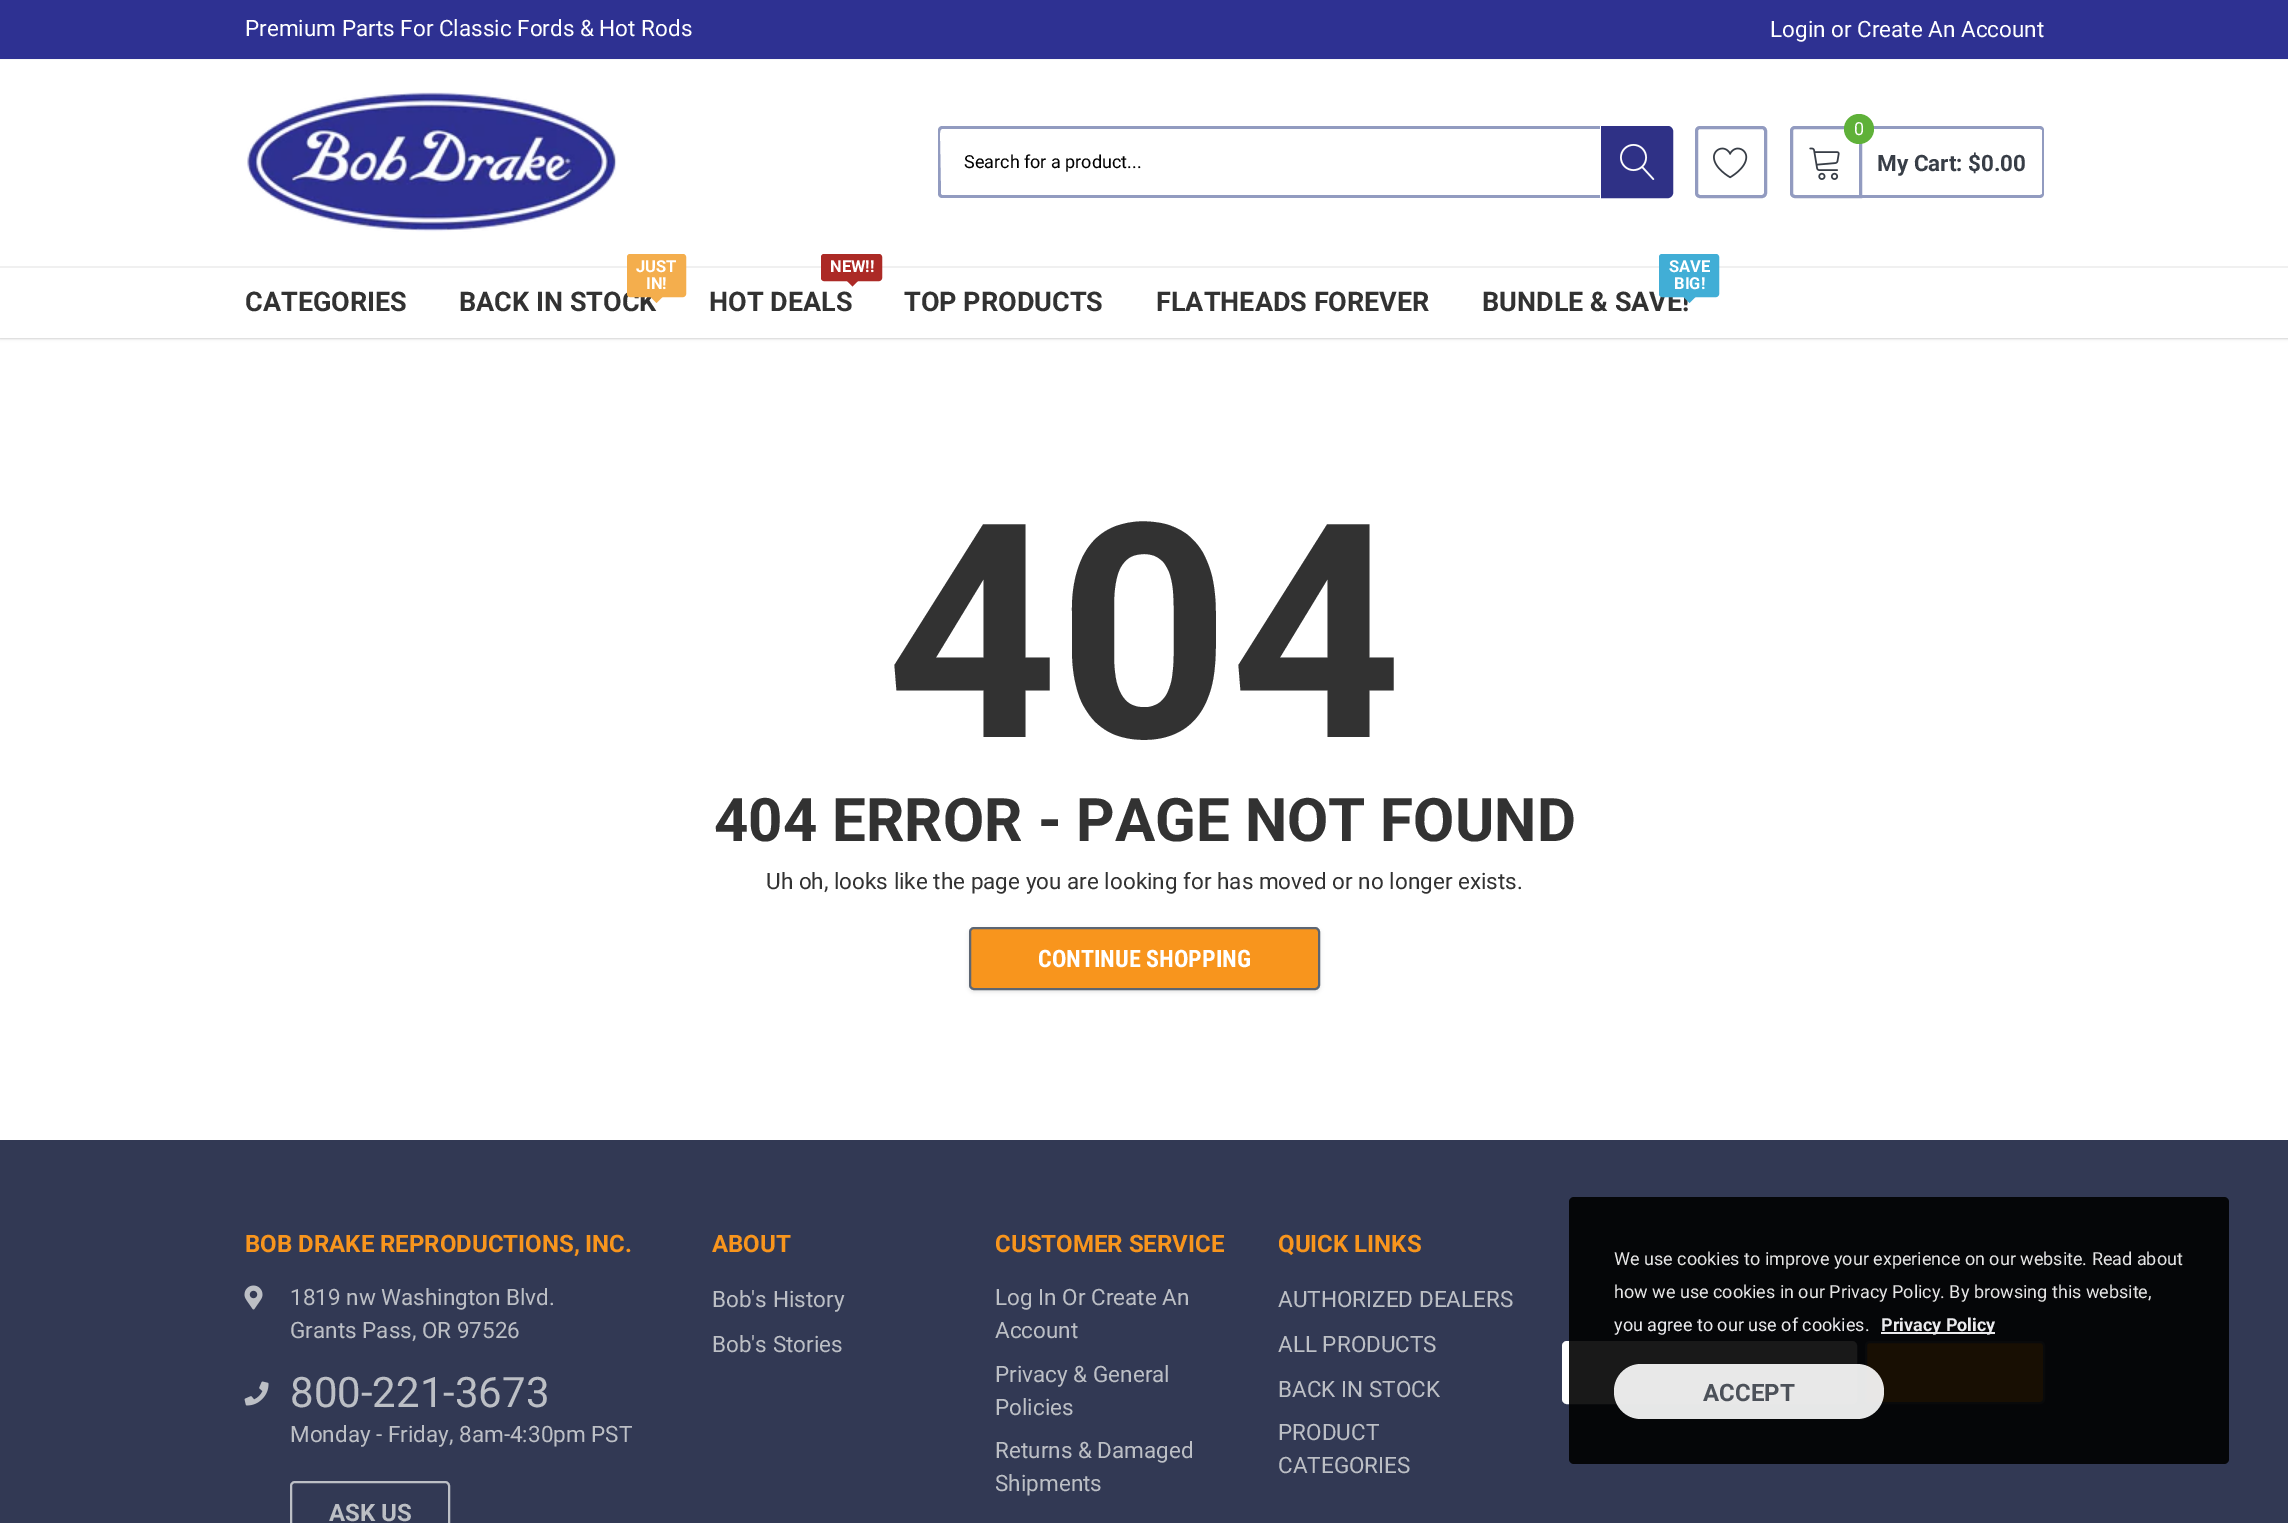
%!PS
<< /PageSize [2288 1523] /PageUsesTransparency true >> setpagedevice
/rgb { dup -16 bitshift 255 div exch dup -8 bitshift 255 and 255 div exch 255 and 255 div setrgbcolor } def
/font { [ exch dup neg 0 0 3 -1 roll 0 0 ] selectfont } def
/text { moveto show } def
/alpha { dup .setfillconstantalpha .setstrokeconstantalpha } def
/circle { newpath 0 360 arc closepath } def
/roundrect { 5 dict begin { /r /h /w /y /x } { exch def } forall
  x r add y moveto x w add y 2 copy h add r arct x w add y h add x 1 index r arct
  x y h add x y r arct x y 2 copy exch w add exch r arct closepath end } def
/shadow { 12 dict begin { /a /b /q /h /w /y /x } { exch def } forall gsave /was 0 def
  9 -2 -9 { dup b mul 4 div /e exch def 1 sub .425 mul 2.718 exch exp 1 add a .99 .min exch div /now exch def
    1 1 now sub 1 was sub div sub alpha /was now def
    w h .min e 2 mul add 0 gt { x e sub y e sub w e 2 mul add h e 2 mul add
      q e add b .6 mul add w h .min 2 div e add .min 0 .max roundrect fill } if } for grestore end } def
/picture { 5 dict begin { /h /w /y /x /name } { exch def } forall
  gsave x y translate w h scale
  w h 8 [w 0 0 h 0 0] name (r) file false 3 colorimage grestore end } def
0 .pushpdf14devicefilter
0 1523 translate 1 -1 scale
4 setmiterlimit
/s1 { /Roboto-Regular 22.5 font 16#FFFFFF rgb } def
/s2 { /Roboto-Regular 18 font 16#000000 rgb } def
/s3 { /Roboto-Regular 18 font 16#FFFFFF rgb } def
/s4 { /Roboto-Bold 22.5 font 16#383E47 rgb } def
/s5 { /Roboto-Bold 27 font 16#323232 rgb } def
/s6 { /Roboto-Bold 16.5 font 16#FFFFFF rgb } def
/s7 { /Roboto-Bold 300 font 16#323232 rgb } def
/s8 { /Roboto-Bold 60 font 16#323232 rgb } def
/s9 { /Roboto-Regular 22.5 font 16#323232 rgb } def
/s10 { /RobotoCondensed-Bold 24 font 16#FFFFFF rgb } def
/s11 { /Roboto-Bold 24 font 16#F8951D rgb } def
/s12 { /Roboto-Regular 22.5 font 16#BCBFC5 rgb } def
/s13 { /Roboto-Regular 42 font 16#BCBFC5 rgb } def
/s14 { /Roboto-Bold 24 font 16#BCBFC5 rgb } def
/s15 { /Roboto-Regular 18 font 16#E6E6E6 rgb } def
/s16 { /Roboto-Regular 18 font 16#EBEBEE rgb } def
/s17 { /Roboto-Bold 18 font 16#EBEBEE rgb } def
/s18 { /Roboto-Bold 24 font 16#4C5159 rgb } def
16#FFFFFF rgb
0 0 2288 1523 rectfill
16#000000 rgb
0 2 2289 337 0 1.5 0.1 shadow
0.06 alpha
2 setlinewidth
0 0 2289 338 rectstroke
1 alpha
16#FFFFFF rgb
0 268 2288 70 rectfill
16#2E3192 rgb
0 0 2288 59 rectfill
16#F7F7F7 rgb
0 59 2288 1 rectfill
s1
(Premium Parts For Classic Fords & Hot Rods) 245 36 text
(Login) 1770 37 text
(or Create An Account) 1831 37 text
0 60 2288 206 rectfill
(pic1.raw) 247 92 370 140 picture
16#929BC0 rgb
942 126 moveto 1600 126 lineto 1600 198 lineto 942 198 lineto 940 198 938 196 938 194 curveto 938 130 lineto 938 128 940 126 942 126 curveto closepath 942 129 moveto 1600 129 lineto 1600 195 lineto 942 195 lineto 941 194 lineto 940 141 lineto 940 138 939 129 942 129 curveto closepath eofill
s2
(Search for a product...) 964 168 text
16#2F3186 rgb
1602 127 moveto 1668 127 lineto 1670 127 1672 129 1672 131 curveto 1672 193 lineto 1672 195 1670 197 1668 197 curveto 1602 197 lineto closepath gsave fill grestore
stroke
(pic2.raw) 1620 144 35 36 picture
16#929BC0 rgb
3 setlinewidth
1696.5 127.5 69 69 3.5 roundrect stroke
(pic3.raw) 1713 147 35 32 picture
1795 127.5 moveto 1860.5 127.5 lineto 1860.5 196.5 lineto 1795 196.5 lineto 1793 196.5 1791.5 195 1791.5 193 curveto 1791.5 131 lineto 1791.5 129 1793 127.5 1795 127.5 curveto closepath stroke
1862 126 moveto 2040 126 lineto 2042 126 2044 128 2044 130 curveto 2044 194 lineto 2044 196 2042 198 2040 198 curveto 1862 198 lineto closepath 1862 129 moveto 2040 129 lineto 2041 129 2042 130 2042 130 curveto 2042 194 lineto 2042 194 2041 195 2040 195 curveto 1862 195 lineto closepath eofill
16#5FB139 rgb
1859 129 15 circle fill
s3
(0) 1854 135 text
(pic4.raw) 1809 147 31 33 picture
s4
(My Cart: $0.00) 1877 171 text
16#F0F0F0 rgb
0 266 2288 2 rectfill
s5
(CATEGORIES) 245 311 text
(BACK IN STOCK) 459 311 text
16#F4AE4D rgb
628 255 57 41 2 roundrect gsave fill grestore
2 setlinewidth
stroke
s6
(JUST) 636 272 text
(IN!) 646 289 text
16#F4AE4D rgb
649 295.5 moveto 664 295.5 lineto 656.5 303 lineto closepath fill
16#AC2A26 rgb
822 255 59 25 2 roundrect gsave fill grestore
stroke
s6
(NEW!!) 830 272 text
16#AC2A26 rgb
845 279 moveto 860 279 lineto 852.5 286.5 lineto closepath fill
s5
(HOT DEALS) 709 311 text
(TOP PRODUCTS) 904 311 text
(FLATHEADS FOREVER) 1156 311 text
(BUNDLE & SAVE!) 1482 311 text
16#41AED6 rgb
1660 255 58 41 2 roundrect gsave fill grestore
stroke
s6
(SAVE) 1669 272 text
(BIG!) 1674 289 text
16#41AED6 rgb
1682 295.5 moveto 1697 295.5 lineto 1689.5 303 lineto closepath fill
s7
(404) 886 737 text
s8
(404 ERROR - PAGE NOT FOUND) 714 841 text
s9
(Uh oh, looks like the page you are looking for has moved or no longer exists.) 766 889 text
16#000000 rgb
969 929 351 63 5 2 0.1 shadow
16#F8951D rgb
970 928 349 61 4 roundrect gsave fill grestore
16#5D6673 rgb
stroke
s10
(CONTINUE SHOPPING) 1038 967 text
16#323954 rgb
0 1140 2288 383 rectfill
s11
(BOB DRAKE REPRODUCTIONS, INC.) 245 1252 text
(pic5.raw) 244 1285 19 25 picture
s12
(1819 nw Washington Blvd.) 290 1305 text
(Grants Pass, OR 97526) 290 1338 text
(pic6.raw) 244 1381 25 25 picture
s13
(800-221-3673) 290 1407 text
s12
(Monday - Friday, 8am-4:30pm PST) 290 1442 text
291 1482 158 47 4 roundrect stroke
s14
(ASK US) 329 1521 text
s11
(ABOUT) 712 1252 text
s12
(Bob's History) 712 1307 text
(Bob's Stories) 712 1352 text
s11
(CUSTOMER SERVICE) 995 1252 text
s12
(Log In Or Create An) 995 1305 text
(Account) 995 1338 text
(Privacy & General) 995 1382 text
(Policies) 995 1415 text
(Returns & Damaged) 995 1458 text
(Shipments) 995 1491 text
s11
(QUICK LINKS) 1278 1252 text
s12
(AUTHORIZED DEALERS) 1278 1307 text
(ALL PRODUCTS) 1278 1352 text
(BACK IN STOCK) 1278 1397 text
(PRODUCT) 1278 1440 text
(CATEGORIES) 1278 1473 text
16#FFFFFF rgb
1563 1342 293 61 4 roundrect gsave fill grestore
stroke
16#F8951D rgb
1866 1342 178 61 4 roundrect gsave fill grestore
16#5D6673 rgb
stroke
0.9 alpha
16#000000 rgb
1569 1197 660 267 5 roundrect fill
1 alpha
s15
(We use cookies to improve your experience on our website. Read about) 1614 1265 text
(how we use cookies in our Privacy Policy. By browsing this website,) 1614 1298 text
s16
(you agree to our use of cookies.) 1614 1331 text
1881 1332 114 2 rectfill
s17
(Privacy Policy) 1881 1331 text
0.9 alpha
16#FFFFFF rgb
1614 1364 270 55 27 roundrect fill
1 alpha
s18
(ACCEPT) 1703 1401 text
.poppdf14devicefilter showpage
